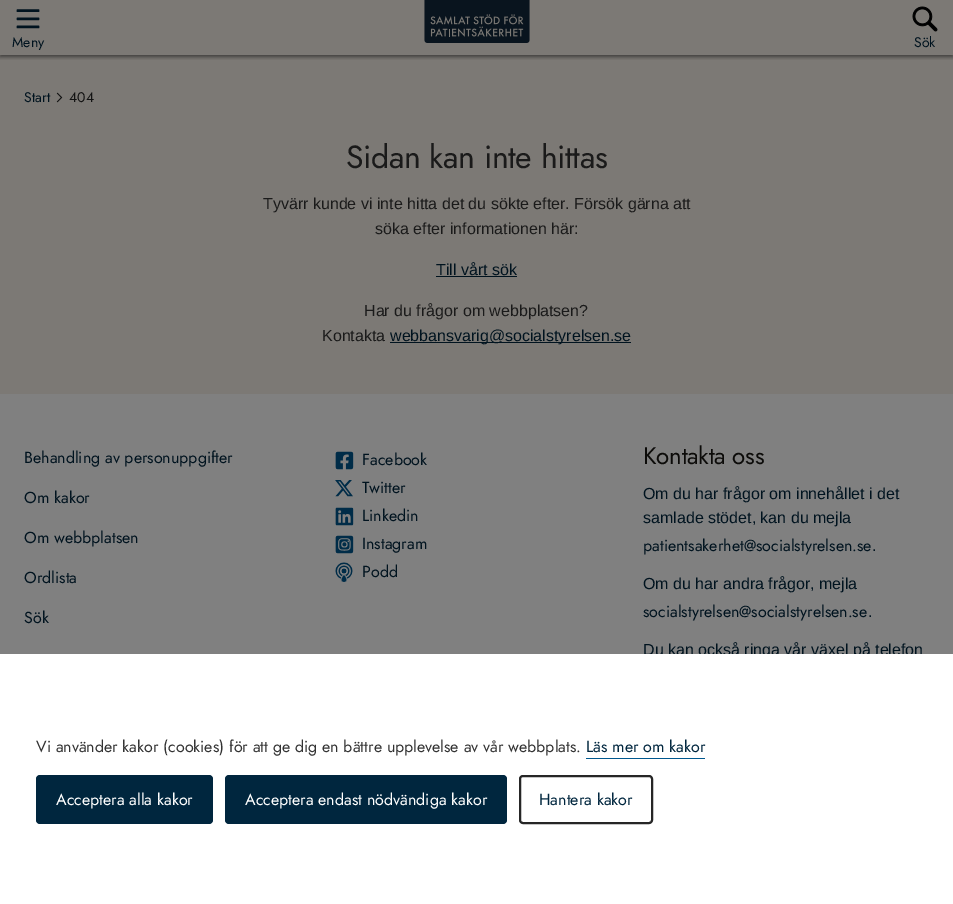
%!PS
<< /PageSize [953 904] /PageUsesTransparency true >> setpagedevice
/rgb { dup -16 bitshift 255 div exch dup -8 bitshift 255 and 255 div exch 255 and 255 div setrgbcolor } def
/font { [ exch dup neg 0 0 3 -1 roll 0 0 ] selectfont } def
/text { moveto show } def
/alpha { dup .setfillconstantalpha .setstrokeconstantalpha } def
/roundrect { 5 dict begin { /r /h /w /y /x } { exch def } forall
  x r add y moveto x w add y 2 copy h add r arct x w add y h add x 1 index r arct
  x y h add x y r arct x y 2 copy exch w add exch r arct closepath end } def
/shadow { 12 dict begin { /a /b /q /h /w /y /x } { exch def } forall gsave /was 0 def
  9 -2 -9 { dup b mul 4 div /e exch def 1 sub .425 mul 2.718 exch exp 1 add a .99 .min exch div /now exch def
    1 1 now sub 1 was sub div sub alpha /was now def
    w h .min e 2 mul add 0 gt { x e sub y e sub w e 2 mul add h e 2 mul add
      q e add b .6 mul add w h .min 2 div e add .min 0 .max roundrect fill } if } for grestore end } def
/picture { 5 dict begin { /h /w /y /x /name } { exch def } forall
  gsave x y translate w h scale
  w h 8 [w 0 0 h 0 0] name (r) file false 3 colorimage grestore end } def
0 .pushpdf14devicefilter
0 904 translate 1 -1 scale
4 setmiterlimit
/s1 { /Jost-Regular 14 font 16#00131F rgb } def
/s2 { /Jost-Regular 14 font 16#131313 rgb } def
/s3 { /LiberationSans-Regular 16 font 16#1A1A1A rgb } def
/s4 { /LiberationSans-Regular 16 font 16#00131F rgb } def
/s5 { /Jost-Regular 16 font 16#00131F rgb } def
/s6 { /Jost-Regular 16 font 16#333333 rgb } def
/s7 { /Jost-Regular 16 font 16#00263E rgb } def
/s8 { /Jost-Regular 16 font 16#FFFFFF rgb } def
16#7C7975 rgb
0 0 953 904 rectfill
gsave
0 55 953 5 rectclip
16#000000 rgb
0 2 953 55 0 2 0.5 shadow
grestore
(pic1.raw) 16 9 24 20 picture
s1
(Meny) 12 47 text
(pic2.raw) 424 0 106 43 picture
(pic3.raw) 912 6 26 26 picture
(Sök) 914 47 text
(Start) 24 102 text
(pic4.raw) 56 92 7 11 picture
s2
(404) 69 102 text
/Jost-Regular 32 font
16#1A1A1A rgb
346 168 moveto -0.4 0 (Sidan kan inte hittas) ashow
s3
(Tyvärr kunde vi inte hitta det du sökte efter. Försök gärna att) 263 209 text
(söka efter informationen här:) 375 234 text
s4
(Till vårt sök) 436 275 text
436 276 81 1 rectfill
s3
(Har du frågor om webbplatsen?) 364 316 text
(Kontakta) 322 341 text
16#00131F rgb
390 342 241 1 rectfill
(webbansvarig@socialstyrelsen.se) 390 341 text
16#808080 rgb
0 394 953 260 rectfill
s5
(Behandling av personuppgifter) 24 463 text
(Om kakor) 24 503 text
(Om webbplatsen) 24 543 text
(Ordlista) 24 583 text
(Sök) 24 623 text
(pic5.raw) 335 451 19 19 picture
(Facebook) 362 465 text
(pic6.raw) 335 480 18 17 picture
(Twitter) 362 493 text
(pic7.raw) 335 507 19 19 picture
(Linkedin) 362 521 text
(pic8.raw) 335 535 19 19 picture
(Instagram) 362 549 text
(pic9.raw) 335 562 18 20 picture
(Podd) 362 577 text
/Jost-Regular 24 font
16#0C0B09 rgb
643 464 moveto -0.25 0 (Kontakta oss) ashow
s4
(Om du har frågor om innehållet i det) 643 499 text
(samlade stödet, kan du mejla) 643 523 text
s5
(patientsakerhet@socialstyrelsen.se) 643 551 text
s4
(.) 872 551 text
(Om du har andra frågor, mejla) 643 589 text
s5
(socialstyrelsen@socialstyrelsen.se) 643 617 text
s4
(.) 868 617 text
(Du kan också ringa vår växel på telefon) 643 655 text
16#FFFFFF rgb
0 654 953 250 rectfill
s6
(Vi använder kakor \(cookies\) för att ge dig en bättre upplevelse av vår webbplats.) 36 752 text
s7
(Läs mer om kakor) 586 752 text
16#00588F rgb
586 758 119 1 rectfill
16#00263E rgb
36 775 177 49 4 roundrect fill
s8
(Acceptera alla kakor) 56 805 text
16#00263E rgb
225 775 282 49 4 roundrect fill
s8
(Acceptera endast nödvändiga kakor) 245 805 text
16#262626 rgb
2 setlinewidth
520 776 132 47 3 roundrect stroke
s7
(Hantera kakor) 539 805 text
.poppdf14devicefilter showpage
